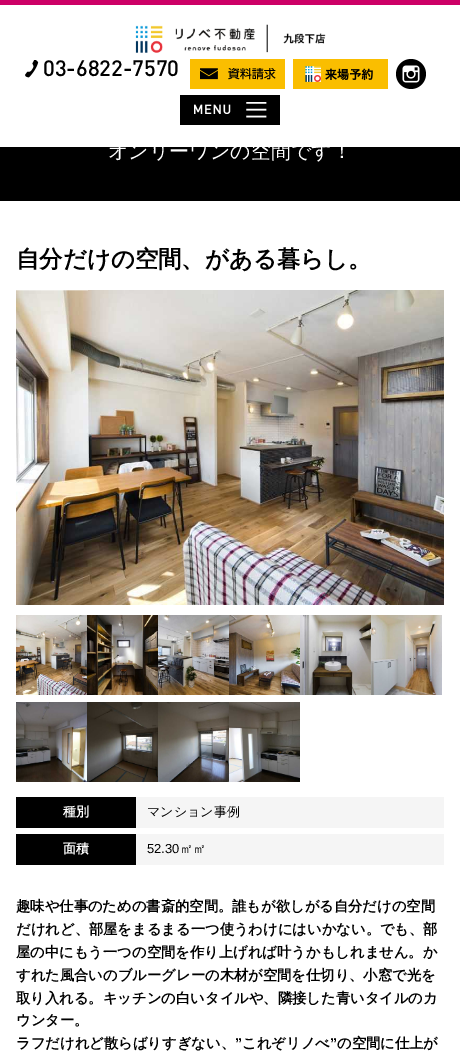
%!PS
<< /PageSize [460 1060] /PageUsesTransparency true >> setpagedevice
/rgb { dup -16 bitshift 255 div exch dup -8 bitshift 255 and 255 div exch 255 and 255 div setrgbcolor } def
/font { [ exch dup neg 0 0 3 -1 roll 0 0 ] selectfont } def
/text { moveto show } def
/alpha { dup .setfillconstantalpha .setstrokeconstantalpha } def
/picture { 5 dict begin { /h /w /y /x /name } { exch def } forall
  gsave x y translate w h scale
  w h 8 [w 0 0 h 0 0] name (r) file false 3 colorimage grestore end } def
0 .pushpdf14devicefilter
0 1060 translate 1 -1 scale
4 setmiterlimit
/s1 { /DIN-Medium 22 font 16#000000 rgb } def
/s2 { /WenQuanYiZenHei-Medium 20 font 16#FFFFFF rgb } def
/s3 { /WenQuanYiZenHei-Bold 23.4 font 16#000000 rgb } def
/s4 { /WenQuanYiZenHei-Bold 13 font 16#FFFFFF rgb } def
/s5 { /WenQuanYiZenHei-Medium 13 font 16#000000 rgb } def
/s6 { /LiberationSans-Regular 13 font 16#000000 rgb } def
/s7 { /WenQuanYiZenHei-Bold 14.3 font 16#000000 rgb } def
/s8 { /LiberationSans-Bold 14.3 font 16#000000 rgb } def
16#FFFFFF rgb
0 0 460 1060 rectfill
16#CC0066 rgb
0 0 460 5 rectfill
(pic1.raw) 135 24 191 29 picture
(pic2.raw) 25 60 14 18 picture
s1
(03-6822-7570) 43 76 text
16#FABE00 rgb
190 59 95 30 rectfill
(pic3.raw) 200 68 76 12 picture
293 59 95 30 rectfill
(pic4.raw) 305 66 68 16 picture
(pic5.raw) 396 59 30 30 picture
16#000000 rgb
180 95 100 30 rectfill
(pic6.raw) 194 102 73 16 picture
0 147 460 54 rectfill
s2
(オンリーワンの空間です！) 108 158 text
s3
(自分だけの空間、がある暮らし。) 16 267 text
(pic7.raw) 16 290 428 315 picture
0.3 alpha
16#FFFFFF rgb
16 290 72 1 rectfill
1 alpha
(pic8.raw) 16 615 71 80 picture
(pic9.raw) 87 615 71 80 picture
(pic10.raw) 158 615 71 80 picture
(pic11.raw) 229 615 71 80 picture
(pic12.raw) 300 615 71 80 picture
(pic13.raw) 371 615 71 80 picture
(pic14.raw) 16 702 71 80 picture
(pic15.raw) 87 702 71 80 picture
(pic16.raw) 158 702 71 80 picture
(pic17.raw) 229 702 71 80 picture
16#000000 rgb
16 797 120 31 rectfill
s4
(種別) 63 816 text
16#F5F5F5 rgb
136 797 308 31 rectfill
s5
(マンション事例) 147 816 text
16 834 120 31 rectfill
s4
(面積) 63 853 text
16#F5F5F5 rgb
136 834 308 31 rectfill
s6
(52.30) 147 853 text
s5
(㎡㎡) 180 853 text
s7
(趣味や仕事のための書斎的空間。誰もが欲しがる自分だけの空間) 16 911 text
(だけれど、部屋をまるまる一つ使うわけにはいかない。でも、部) 16 934 text
(屋の中にもう一つの空間を作り上げれば叶うかもしれません。か) 16 957 text
(すれた風合いのブルーグレーの木材が空間を仕切り、小窓で光を) 16 980 text
(取り入れる。キッチンの白いタイルや、隣接した青いタイルのカ) 16 1003 text
(ウンター。) 16 1025 text
(ラフだけれど散らばりすぎない、) 16 1048 text
s8
(”) 235 1048 text
s7
(これぞリノべ) 242 1048 text
s8
(”) 330 1048 text
s7
(の空間に仕上が) 337 1048 text
.poppdf14devicefilter showpage
